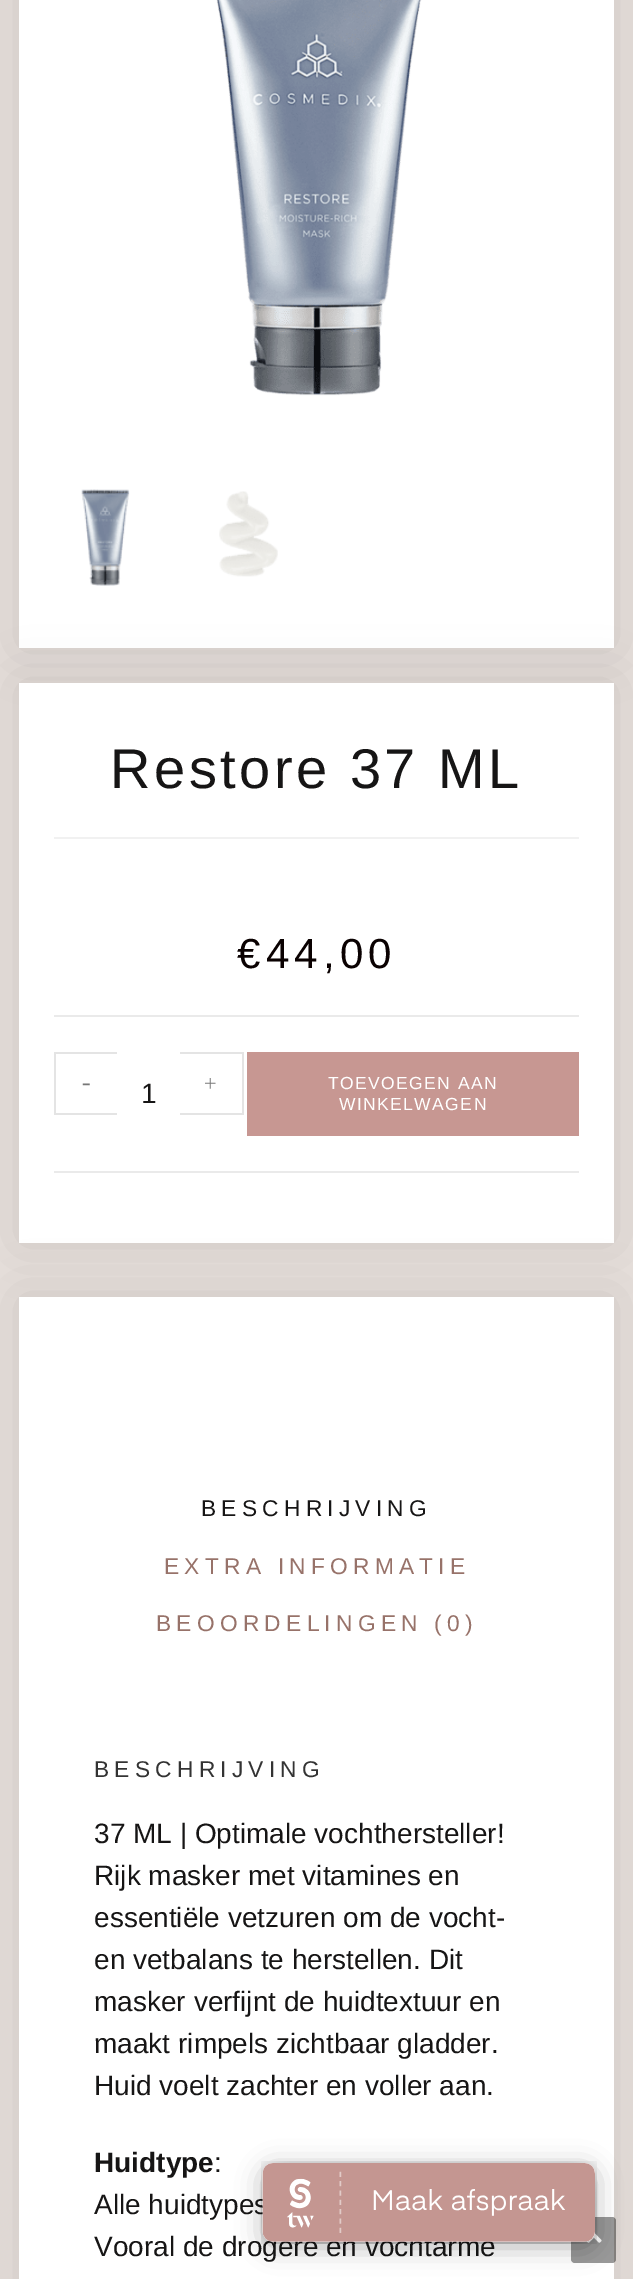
%!PS
<< /PageSize [633 2279] /PageUsesTransparency true >> setpagedevice
/rgb { dup -16 bitshift 255 div exch dup -8 bitshift 255 and 255 div exch 255 and 255 div setrgbcolor } def
/font { [ exch dup neg 0 0 3 -1 roll 0 0 ] selectfont } def
/text { moveto show } def
/alpha { dup .setfillconstantalpha .setstrokeconstantalpha } def
/roundrect { 5 dict begin { /r /h /w /y /x } { exch def } forall
  x r add y moveto x w add y 2 copy h add r arct x w add y h add x 1 index r arct
  x y h add x y r arct x y 2 copy exch w add exch r arct closepath end } def
/shadow { 12 dict begin { /a /b /q /h /w /y /x } { exch def } forall gsave /was 0 def
  9 -2 -9 { dup b mul 4 div /e exch def 1 sub .425 mul 2.718 exch exp 1 add a .99 .min exch div /now exch def
    1 1 now sub 1 was sub div sub alpha /was now def
    w h .min e 2 mul add 0 gt { x e sub y e sub w e 2 mul add h e 2 mul add
      q e add b .6 mul add w h .min 2 div e add .min 0 .max roundrect fill } if } for grestore end } def
/picture { 5 dict begin { /h /w /y /x /name } { exch def } forall
  gsave x y translate w h scale
  w h 8 [w 0 0 h 0 0] name (r) file false 3 colorimage grestore end } def
0 .pushpdf14devicefilter
0 2279 translate 1 -1 scale
4 setmiterlimit
/s1 { /LibreBaskerville-Regular 22.75 font 16#777777 rgb } def
/s2 { /LiberationSans-Regular 28 font 16#161515 rgb } def
/s3 { /LiberationSans-Bold 28 font 16#161515 rgb } def
16#E8E1DD rgb
0 0 633 2279 rectfill
16#000000 rgb
19 -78 595 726 0 26 0.12 shadow
16#FFFFFF rgb
19 0 595 648 rectfill
(pic1.raw) 216 0 206 396 picture
(pic2.raw) 81 489 49 97 picture
(pic3.raw) 219 491 59 86 picture
16#000000 rgb
19 683 595 560 0 26 0.12 shadow
16#FFFFFF rgb
19 683 595 560 rectfill
16#F1F1F1 rgb
54 837 525 2 rectfill
/LiberationSans-Regular 56 font
16#161515 rgb
110 788 moveto 3.5 0 (Restore 37 ML) ashow
/LiberationSans-Regular 42 font
16#0A0101 rgb
237 968 moveto 5.25 0 (€44,00) ashow
16#EAEAEA rgb
54 1015 525 2 rectfill
54 1171 525 2 rectfill
16#E4E4E4 rgb
54 1052 63 2 rectfill
54 1113 63 2 rectfill
54 1052 2 63 rectfill
s1
(-) 81 1091 text
s2
(1) 141 1103 text
16#E4E4E4 rgb
180 1052 63 2 rectfill
242 1052 2 63 rectfill
180 1113 63 2 rectfill
s1
(+) 204 1091 text
16#C79792 rgb
247 1052 332 84 rectfill
/LiberationSans-Regular 17.5 font
16#FFFFFF rgb
328 1089 moveto 1.4 0 (TOEVOEGEN AAN) ashow
339 1110 moveto 1.4 0 (WINKELWAGEN) ashow
16#000000 rgb
19 1297 595 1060 0 26 0.12 shadow
16#FFFFFF rgb
19 1297 595 982 rectfill
/LiberationSans-Regular 22.75 font
16#161515 rgb
201 1516 moveto 5.25 0 (BESCHRIJVING) ashow
16#977269 rgb
164 1574 moveto 5.25 0 (EXTRA INFORMATIE) ashow
156 1631 moveto 5.25 0 (BEOORDELINGEN \(0\)) ashow
16#333333 rgb
94 1777 moveto 5.25 0 (BESCHRIJVING) ashow
s2
(37 ML | Optimale vochthersteller!) 94 1843 text
(Rijk masker met vitamines en) 94 1885 text
(essentiële vetzuren om de vocht-) 94 1927 text
(en vetbalans te herstellen. Dit) 94 1969 text
(masker verfijnt de huidtextuur en) 94 2011 text
(maakt rimpels zichtbaar gladder.) 94 2053 text
(Huid voelt zachter en voller aan.) 94 2095 text
s3
(Huidtype) 94 2172 text
s2
(:) 214 2172 text
(Alle huidtypes) 94 2214 text
(Vooral de drogere en vochtarme) 94 2256 text
0.4 alpha
16#000000 rgb
571 2217 45 46 4 roundrect fill
1 alpha
(pic5.raw) 586 2232 16 11 picture
263 2168 332 79 11 13 0.3 shadow
(pic4.raw) 261 2161 336 83 picture
.poppdf14devicefilter showpage
